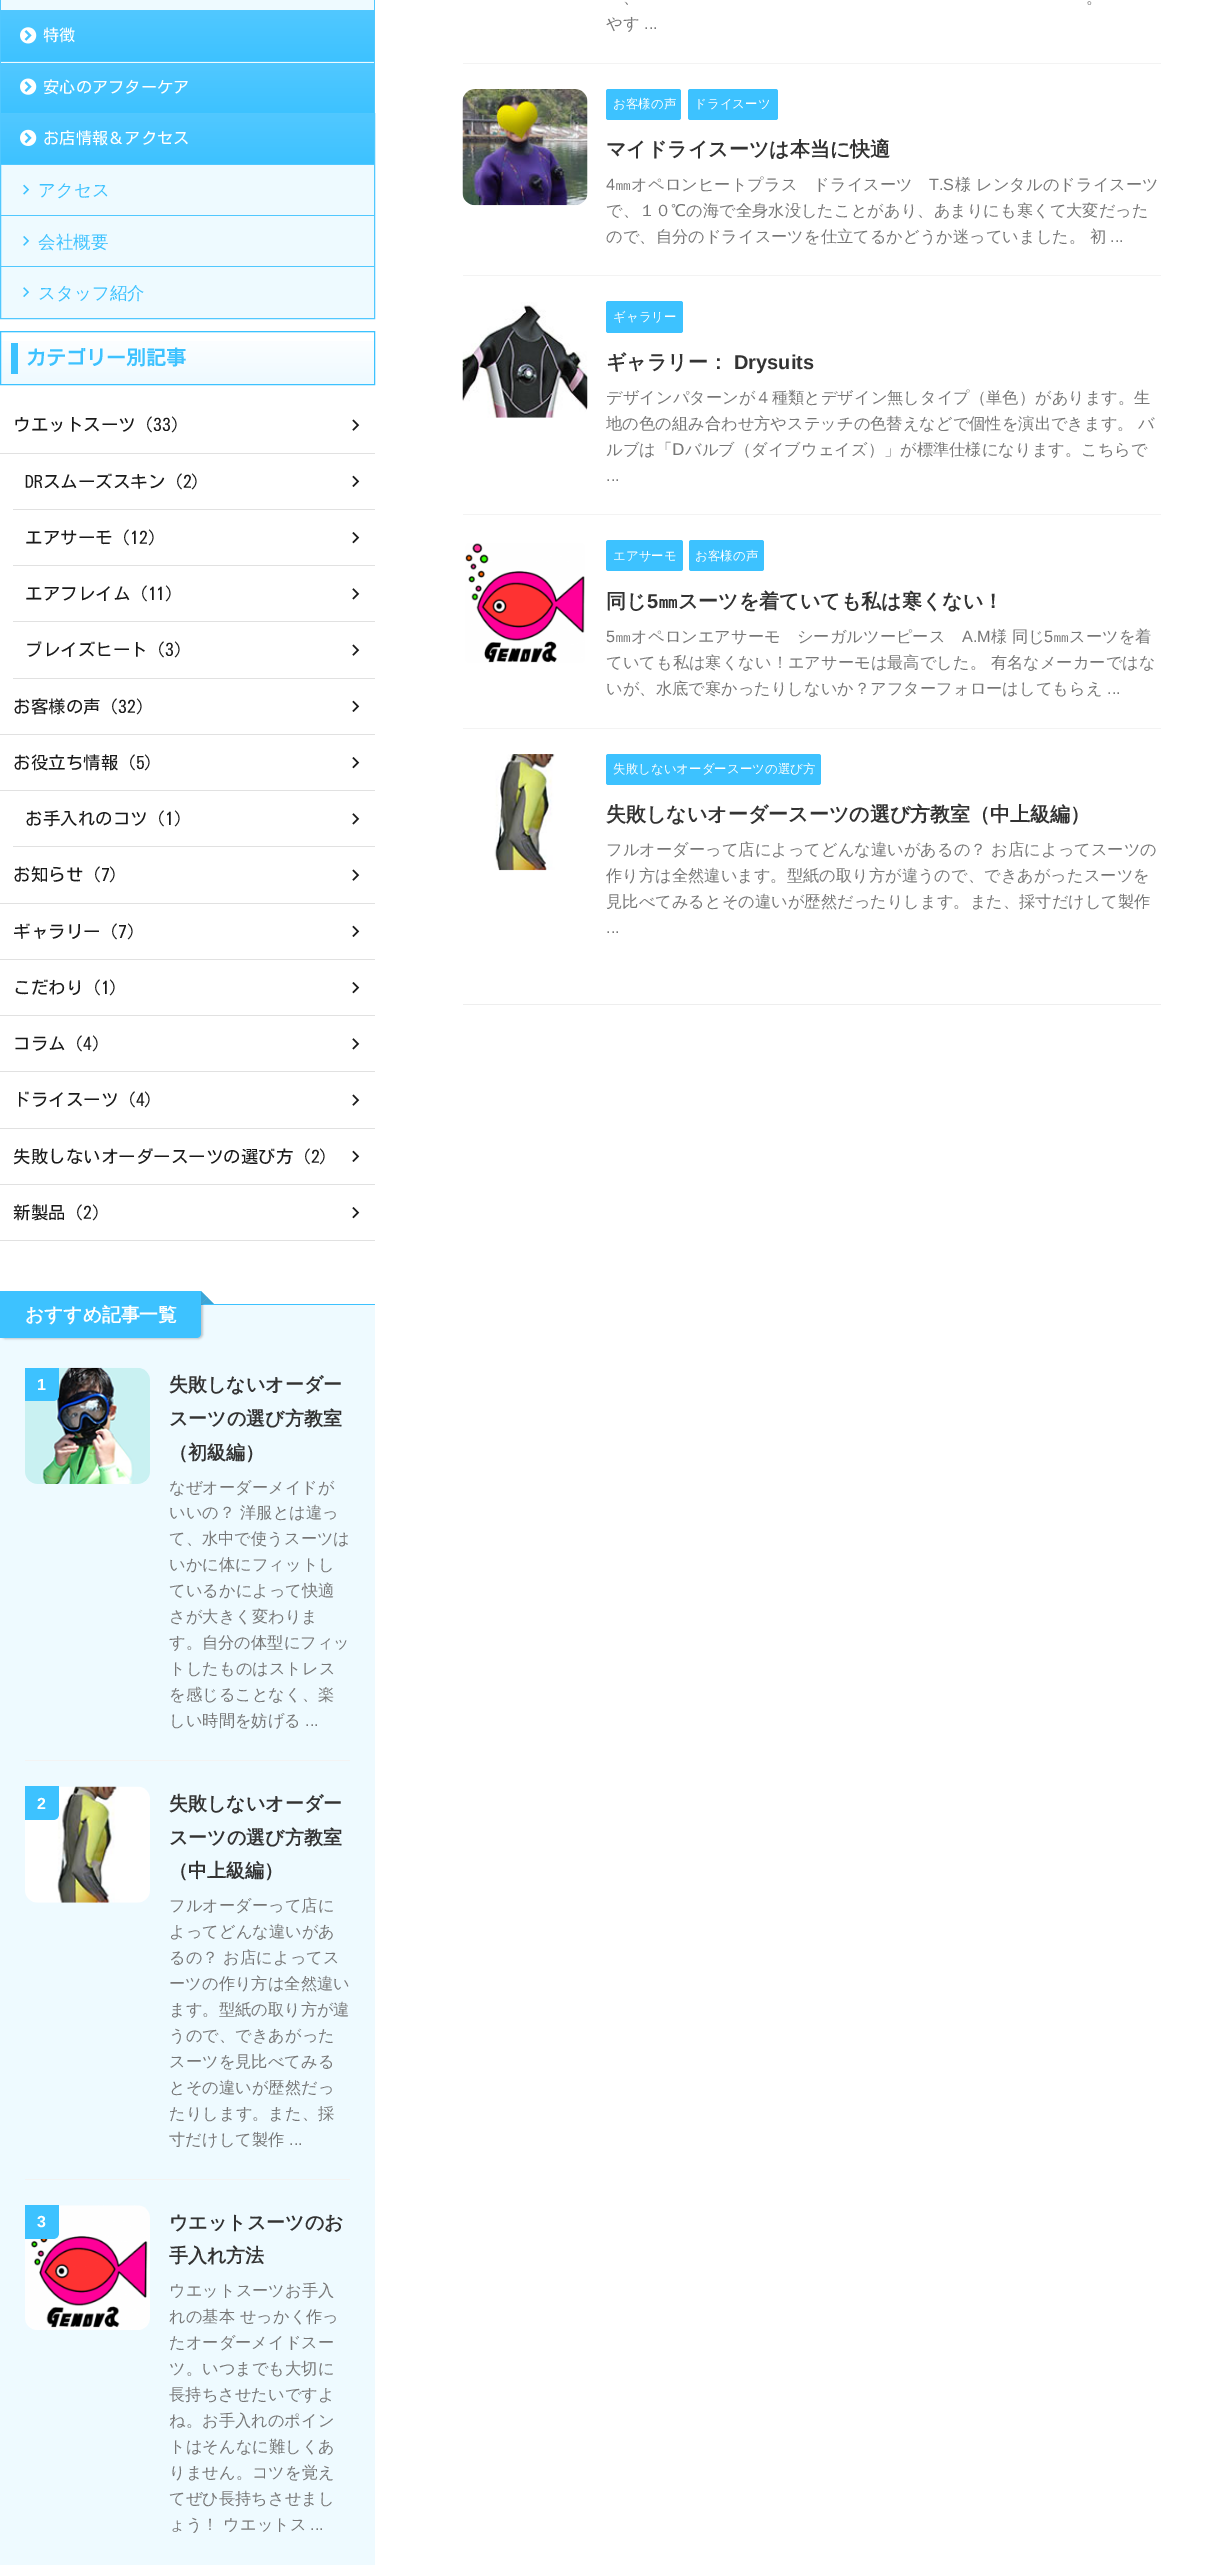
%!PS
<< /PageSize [1223 2565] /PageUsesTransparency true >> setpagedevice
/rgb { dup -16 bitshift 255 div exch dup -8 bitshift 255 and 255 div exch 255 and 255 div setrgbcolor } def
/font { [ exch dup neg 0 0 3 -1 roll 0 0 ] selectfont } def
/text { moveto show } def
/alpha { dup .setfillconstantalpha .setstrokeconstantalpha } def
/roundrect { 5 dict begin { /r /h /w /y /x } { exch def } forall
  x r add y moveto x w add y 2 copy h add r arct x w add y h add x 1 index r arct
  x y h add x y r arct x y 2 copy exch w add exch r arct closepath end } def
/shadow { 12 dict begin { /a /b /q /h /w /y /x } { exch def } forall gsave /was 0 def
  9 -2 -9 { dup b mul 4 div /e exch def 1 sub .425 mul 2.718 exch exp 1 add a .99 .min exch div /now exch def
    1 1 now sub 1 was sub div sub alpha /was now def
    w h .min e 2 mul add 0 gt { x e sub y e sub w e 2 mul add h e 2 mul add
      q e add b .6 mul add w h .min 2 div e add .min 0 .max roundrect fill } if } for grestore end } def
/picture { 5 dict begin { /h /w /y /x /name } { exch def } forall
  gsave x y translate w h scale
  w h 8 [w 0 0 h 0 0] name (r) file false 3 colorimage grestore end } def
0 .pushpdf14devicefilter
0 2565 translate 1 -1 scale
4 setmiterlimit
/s1 { /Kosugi-Regular 16.25 font 16#FFFFFF rgb } def
/s2 { /WenQuanYiZenHei-Medium 17.5 font 16#3DC2FF rgb } def
/s3 { /Kosugi-Bold 20 font 16#3DC2FF rgb } def
/s4 { /Kosugi-Regular 17.5 font 16#1A1A1A rgb } def
/s5 { /WenQuanYiZenHei-Bold 18.75 font 16#FFFFFF rgb } def
/s6 { /LiberationSans-Bold 16 font 16#FFFFFF rgb } def
/s7 { /WenQuanYiZenHei-Bold 19 font 16#333333 rgb } def
/s8 { /WenQuanYiZenHei-Medium 16.25 font 16#777777 rgb } def
/s9 { /LiberationSans-Regular 16.25 font 16#777777 rgb } def
/s10 { /WenQuanYiZenHei-Medium 12.5 font 16#FFFFFF rgb } def
/s11 { /WenQuanYiZenHei-Bold 20 font 16#333333 rgb } def
/s12 { /LiberationSans-Bold 20 font 16#333333 rgb } def
/s13 { /DejaVuSans-Regular 16.25 font 16#777777 rgb } def
16#FFFFFF rgb
0 0 1223 2565 rectfill
16#EEFAFF rgb
1 0 373 318 rectfill
16#51C8FF rgb
374 0 1 10 rectfill
0 0 1 10 rectfill
0 10 375 1 rectfill
374 10 1 51 rectfill
0 10 1 51 rectfill
gsave 1 11 moveto 374 11 lineto 374 61 lineto 1 61 lineto closepath clip newpath
<< /ShadingType 2 /ColorSpace /DeviceRGB /Coords [188 11 188 61] /Extend [true true] /Function << /FunctionType 2 /Domain [0 1] /C0 [0.318 0.784 1] /C1 [0.239 0.761 1] /N 1 >> >> shfill grestore
(pic1.raw) 20 27 17 17 picture
s1
(特徴) 43 41 text
16#51C8FF rgb
0 61 375 1 rectfill
374 61 1 52 rectfill
0 61 1 52 rectfill
gsave 1 63 moveto 374 63 lineto 374 113 lineto 1 113 lineto closepath clip newpath
<< /ShadingType 2 /ColorSpace /DeviceRGB /Coords [188 62 188 113] /Extend [true true] /Function << /FunctionType 2 /Domain [0 1] /C0 [0.318 0.784 1] /C1 [0.239 0.761 1] /N 1 >> >> shfill grestore
(pic2.raw) 20 78 17 17 picture
s1
(安心のアフターケア) 43 93 text
16#51C8FF rgb
0.5 113.5 374 205 rectstroke
gsave 1 114 moveto 374 114 lineto 374 164 lineto 1 164 lineto closepath clip newpath
<< /ShadingType 2 /ColorSpace /DeviceRGB /Coords [188 114 188 164] /Extend [true true] /Function << /FunctionType 2 /Domain [0 1] /C0 [0.318 0.784 1] /C1 [0.239 0.761 1] /N 1 >> >> shfill grestore
(pic3.raw) 20 129 17 17 picture
s1
(お店情報＆アクセス) 43 144 text
16#51C8FF rgb
1 164 373 1 rectfill
1 215 373 1 rectfill
(pic4.raw) 23 184 7 11 picture
s2
(アクセス) 38 196 text
16#51C8FF rgb
1 266 373 1 rectfill
(pic5.raw) 23 236 7 10 picture
s2
(会社概要) 38 248 text
(pic6.raw) 23 287 7 11 picture
(スタッフ紹介) 38 299 text
gsave 0 332 moveto 375 332 lineto 375 333 lineto 0 333 lineto closepath clip newpath
<< /ShadingType 2 /ColorSpace /DeviceRGB /Coords [188 281 188 333] /Extend [true true] /Function << /FunctionType 2 /Domain [0 1] /C0 [1 1 1] /C1 [0.933 0.98 1] /N 1 >> >> shfill grestore
gsave 1 341 moveto 374 341 lineto 374 384 lineto 1 384 lineto closepath clip newpath
<< /ShadingType 2 /ColorSpace /DeviceRGB /Coords [188 333 188 384] /Extend [true true] /Function << /FunctionType 2 /Domain [0 1] /C0 [1 1 1] /C1 [0.933 0.98 1] /N 1 >> >> shfill grestore
0.5 331.5 374 53 rectstroke
11 343 7 31 rectfill
s3
(カテゴリー別記事) 26 365 text
16#E1E1E1 rgb
0 453 375 1 rectfill
s4
(ウエットスーツ \(33\)) 13 431 text
(pic7.raw) 352 419 8 12 picture
16#E1E1E1 rgb
13 509 362 1 rectfill
s4
(DRスムーズスキン \(2\)) 25 488 text
(pic8.raw) 352 475 8 12 picture
16#E1E1E1 rgb
13 565 362 1 rectfill
s4
(エアサーモ \(12\)) 25 544 text
(pic9.raw) 352 532 8 12 picture
16#E1E1E1 rgb
13 621 362 1 rectfill
s4
(エアフレイム \(11\)) 25 600 text
(pic10.raw) 352 588 8 12 picture
16#E1E1E1 rgb
13 678 362 1 rectfill
s4
(ブレイズヒート \(3\)) 25 656 text
(pic7.raw) 352 644 8 12 picture
16#E1E1E1 rgb
0 734 375 1 rectfill
s4
(お客様の声 \(32\)) 13 713 text
(pic8.raw) 352 700 8 12 picture
16#E1E1E1 rgb
0 790 375 1 rectfill
s4
(お役立ち情報 \(5\)) 13 769 text
(pic9.raw) 352 757 8 12 picture
16#E1E1E1 rgb
13 846 362 1 rectfill
s4
(お手入れのコツ \(1\)) 25 825 text
(pic10.raw) 352 813 8 12 picture
16#E1E1E1 rgb
0 903 375 1 rectfill
s4
(お知らせ \(7\)) 13 881 text
(pic7.raw) 352 869 8 12 picture
16#E1E1E1 rgb
0 959 375 1 rectfill
s4
(ギャラリー \(7\)) 13 938 text
(pic8.raw) 352 925 8 12 picture
16#E1E1E1 rgb
0 1015 375 1 rectfill
s4
(こだわり \(1\)) 13 994 text
(pic9.raw) 352 982 8 12 picture
16#E1E1E1 rgb
0 1071 375 1 rectfill
s4
(コラム \(4\)) 13 1050 text
(pic10.raw) 352 1038 8 12 picture
16#E1E1E1 rgb
0 1128 375 1 rectfill
s4
(ドライスーツ \(4\)) 13 1106 text
(pic7.raw) 352 1094 8 12 picture
16#E1E1E1 rgb
0 1184 375 1 rectfill
s4
(失敗しないオーダースーツの選び方 \(2\)) 13 1163 text
(pic8.raw) 352 1150 8 12 picture
16#E1E1E1 rgb
0 1240 375 1 rectfill
s4
(新製品 \(2\)) 13 1219 text
(pic9.raw) 352 1207 8 12 picture
16#EEFAFF rgb
0 1305 375 1260 rectfill
16#3DC2FF rgb
201 1304 174 1 rectfill
16#000000 rgb
1 1293 202 46 5 1 0.2 shadow
16#3DC2FF rgb
0 1291 moveto 201 1291 lineto 201 1333 lineto 201 1336 199 1338 196 1338 curveto 0 1338 lineto closepath fill
214 1304 moveto 201 1304 lineto 207.5 1297.5 lineto closepath fill
201 1304 moveto 201 1291 lineto 207.5 1297.5 lineto closepath fill
0.2 alpha
16#333333 rgb
214 1304 moveto 201 1304 lineto 207.5 1297.5 lineto closepath fill
201 1304 moveto 201 1291 lineto 207.5 1297.5 lineto closepath fill
1 alpha
s5
(おすすめ記事一覧) 25 1321 text
16#F3F3F3 rgb
25 1760 325 1 rectfill
(pic11.raw) 25 1367 125 117 picture
16#3DC2FF rgb
25 1368 moveto 59 1368 lineto 59 1395 lineto 59 1398.5 56.5 1401 53 1401 curveto 25 1401 lineto closepath fill
s6
(1) 37 1390 text
s7
(失敗しないオーダー) 169 1391 text
(スーツの選び方教室) 169 1425 text
(（初級編）) 169 1459 text
s8
(なぜオーダーメイドが) 169 1493 text
(いいの？ 洋服とは違っ) 169 1518 text
(て、水中で使うスーツは) 169 1544 text
(いかに体にフィットし) 169 1570 text
(ているかによって快適) 169 1596 text
(さが大きく変わりま) 169 1622 text
(す。自分の体型にフィッ) 169 1648 text
(トしたものはストレス) 169 1674 text
(を感じることなく、楽) 169 1700 text
(しい時間を妨げる) 169 1726 text
s9
(...) 305 1726 text
16#F3F3F3 rgb
25 2179 325 1 rectfill
(pic12.raw) 25 1786 125 117 picture
16#3DC2FF rgb
25 1786 moveto 59 1786 lineto 59 1814 lineto 59 1817.5 56.5 1820 53 1820 curveto 25 1820 lineto closepath fill
s6
(2) 37 1809 text
s7
(失敗しないオーダー) 169 1810 text
(スーツの選び方教室) 169 1844 text
(（中上級編）) 169 1877 text
s8
(フルオーダーって店に) 169 1911 text
(よってどんな違いがあ) 169 1937 text
(るの？ お店によってス) 169 1963 text
(ーツの作り方は全然違い) 169 1989 text
(ます。型紙の取り方が違) 169 2015 text
(うので、できあがった) 169 2041 text
(スーツを見比べてみる) 169 2067 text
(とその違いが歴然だっ) 169 2093 text
(たりします。また、採) 169 2119 text
(寸だけして製作) 169 2145 text
s9
(...) 289 2145 text
(pic13.raw) 25 2205 125 125 picture
16#3DC2FF rgb
25 2205 moveto 59 2205 lineto 59 2233 lineto 59 2236.5 56.5 2239 53 2239 curveto 25 2239 lineto closepath fill
s6
(3) 37 2227 text
s7
(ウエットスーツのお) 169 2229 text
(手入れ方法) 169 2262 text
s8
(ウエットスーツお手入) 169 2296 text
(れの基本 せっかく作っ) 169 2322 text
(たオーダーメイドスー) 169 2348 text
(ツ。いつまでも大切に) 169 2374 text
(長持ちさせたいですよ) 169 2400 text
(ね。お手入れのポイン) 169 2426 text
(トはそんなに難しくあ) 169 2452 text
(りません。コツを覚え) 169 2478 text
(てぜひ長持ちさせまし) 169 2504 text
(ょう！ ウエットス) 169 2530 text
s9
(...) 310 2530 text
16#F3F3F3 rgb
463 63 698 1 rectfill
s8
(、) 623 3 text
(。) 1086 3 text
(やす) 606 29 text
s9
(...) 644 29 text
16#F3F3F3 rgb
463 275 698 1 rectfill
(pic14.raw) 462 89 126 117 picture
16#3DC2FF rgb
606 89 75 31 2.5 roundrect fill
s10
(お客様の声) 613 108 text
16#3DC2FF rgb
688 89 90 31 2.5 roundrect fill
s10
(ドライスーツ) 694 108 text
s11
(マイドライスーツは本当に快適) 606 156 text
s9
(4) 606 190 text
s8
(㎜オペロンヒートプラス　ドライスーツ) 615 190 text
s9
(T.S) 929 190 text
s8
(様 レンタルのドライスーツ) 955 190 text
(で、１０℃の海で全身水没したことがあり、あまりにも寒くて大変だった) 606 216 text
(ので、自分のドライスーツを仕立てるかどうか迷っていました。 初) 606 242 text
s9
(...) 1110 242 text
16#F3F3F3 rgb
463 514 698 1 rectfill
(pic15.raw) 462 302 126 116 picture
16#3DC2FF rgb
606 301 77 32 2.5 roundrect fill
s10
(ギャラリー) 613 321 text
s11
(ギャラリー：) 606 369 text
s12
(Drysuits) 734 369 text
s8
(デザインパターンが４種類とデザイン無しタイプ（単色）があります。生) 606 403 text
(地の色の組み合わせ方やステッチの色替えなどで個性を演出できます。 バ) 606 429 text
(ルブは「) 606 455 text
s13
(Ⅾ) 672 455 text
s8
(バルブ（ダイブウェイズ）」が標準仕様になります。こちらで) 685 455 text
s9
(...) 606 481 text
16#F3F3F3 rgb
463 728 698 1 rectfill
(pic16.raw) 465 543 120 120 picture
16#3DC2FF rgb
606 540 77 31 2.5 roundrect fill
s10
(エアサーモ) 613 560 text
16#3DC2FF rgb
689 540 75 31 2.5 roundrect fill
s10
(お客様の声) 695 560 text
s11
(同じ) 606 608 text
s12
(5) 647 608 text
s11
(㎜スーツを着ていても私は寒くない！) 658 608 text
s9
(5) 606 642 text
s8
(㎜オペロンエアサーモ　シーガルツーピース) 615 642 text
s9
(A.M) 962 642 text
s8
(様 同じ) 991 642 text
s9
(5) 1044 642 text
s8
(㎜スーツを着) 1053 642 text
(ていても私は寒くない！エアサーモは最高でした。 有名なメーカーではな) 606 668 text
(いが、水底で寒かったりしないか？アフターフォローはしてもらえ) 606 694 text
s9
(...) 1107 694 text
(pic17.raw) 494 754 61 117 picture
16#3DC2FF rgb
606 754 215 31 2.5 roundrect fill
s10
(失敗しないオーダースーツの選び方) 613 773 text
s11
(失敗しないオーダースーツの選び方教室（中上級編）) 606 821 text
s8
(フルオーダーって店によってどんな違いがあるの？ お店によってスーツの) 606 855 text
(作り方は全然違います。型紙の取り方が違うので、できあがったスーツを) 606 881 text
(見比べてみるとその違いが歴然だったりします。また、採寸だけして製作) 606 907 text
s9
(...) 606 933 text
16#EEEEEE rgb
463 1004 698 1 rectfill
.poppdf14devicefilter showpage
